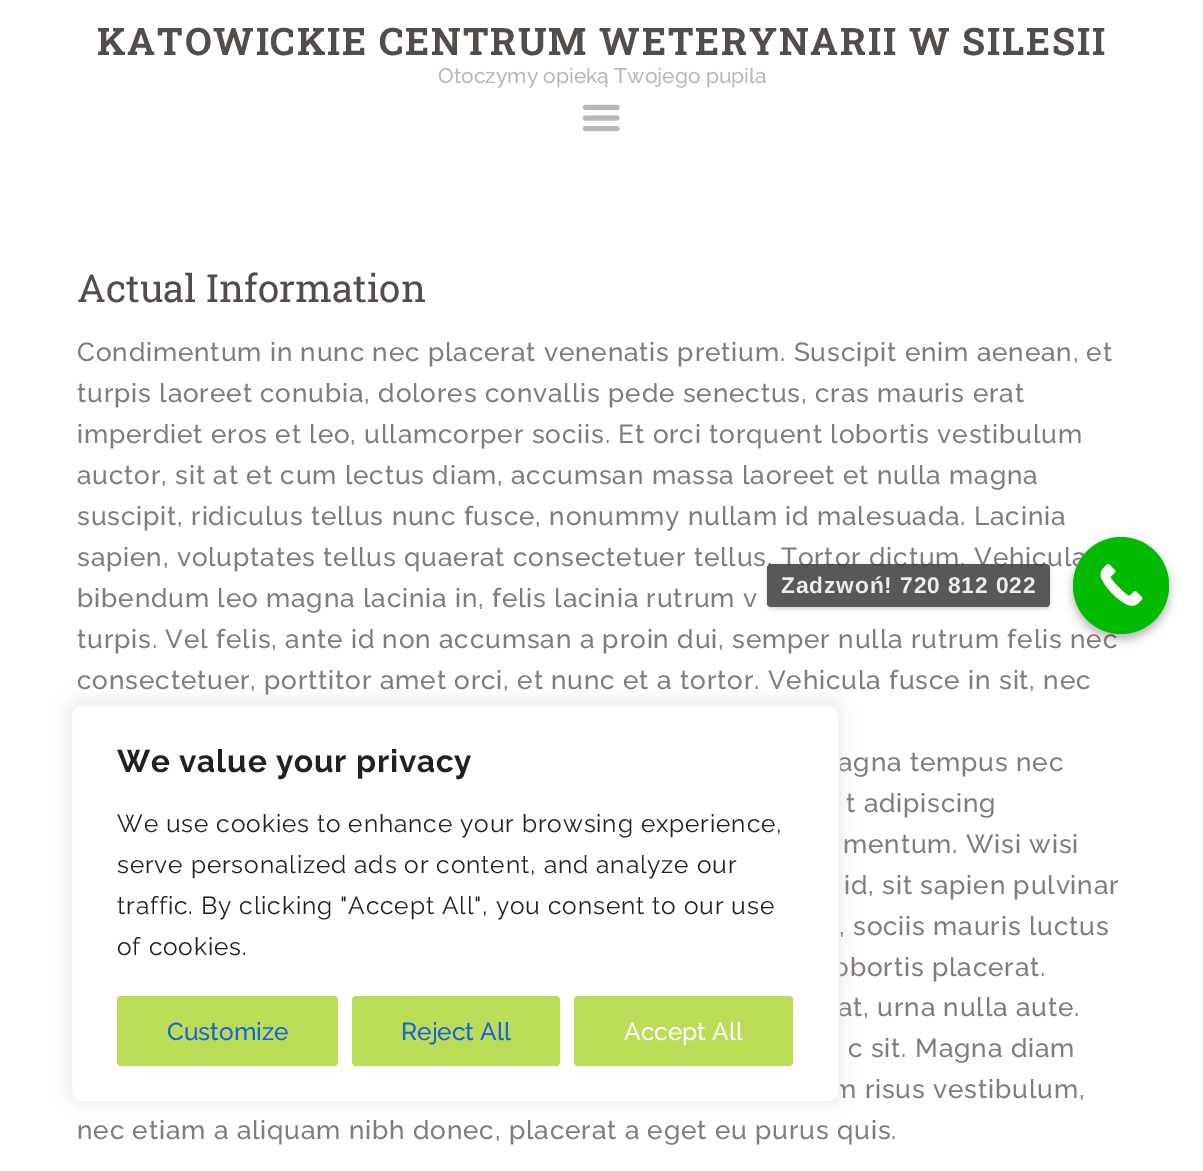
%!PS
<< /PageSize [1203 1171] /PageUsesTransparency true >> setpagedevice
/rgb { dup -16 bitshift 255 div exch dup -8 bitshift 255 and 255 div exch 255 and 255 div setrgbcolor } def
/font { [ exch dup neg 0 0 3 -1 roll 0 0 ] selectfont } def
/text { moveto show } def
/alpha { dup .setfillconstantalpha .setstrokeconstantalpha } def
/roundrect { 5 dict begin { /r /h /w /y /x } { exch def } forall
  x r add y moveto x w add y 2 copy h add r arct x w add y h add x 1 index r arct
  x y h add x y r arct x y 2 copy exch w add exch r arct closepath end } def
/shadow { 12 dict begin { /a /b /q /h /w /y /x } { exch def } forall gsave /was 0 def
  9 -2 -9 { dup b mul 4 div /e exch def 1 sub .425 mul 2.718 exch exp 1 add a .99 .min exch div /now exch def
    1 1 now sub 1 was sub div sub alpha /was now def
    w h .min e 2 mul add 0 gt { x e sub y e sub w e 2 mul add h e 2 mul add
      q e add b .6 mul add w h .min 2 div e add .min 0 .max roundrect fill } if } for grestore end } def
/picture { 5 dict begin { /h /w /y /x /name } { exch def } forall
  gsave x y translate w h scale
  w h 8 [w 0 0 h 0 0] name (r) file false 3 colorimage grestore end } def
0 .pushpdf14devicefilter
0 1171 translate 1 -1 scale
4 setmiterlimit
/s1 { /Raleway-Medium 21 font 16#B7B7B7 rgb } def
/s2 { /RobotoSlab-Regular 38.5 font 16#524D48 rgb } def
/s3 { /Raleway-Medium 24.5 font 16#1863DC rgb } def
/s4 { /Raleway-Medium 24.5 font 16#FFFFFF rgb } def
16#FFFFFF rgb
0 0 1203 1171 rectfill
/RobotoSlab-Bold 37.9 font
16#524D48 rgb
97 55 moveto 1.75 0 (KATOWICKIE CENTRUM WETERYNARII W SILESII) ashow
s1
(Otoczymy opieką Twojego pupila) 438 83 text
(pic1.raw) 582 104 38 28 picture
s2
(Actual Information) 77 302 text
/Raleway-Medium 26.15 font
16#817C77 rgb
77 361 moveto 0.88 0 (Condimentum in nunc nec placerat venenatis pretium. Suscipit enim aenean, et) ashow
77 402 moveto 0.88 0 (turpis laoreet conubia, dolores convallis pede senectus, cras mauris erat) ashow
77 443 moveto 0.88 0 (imperdiet eros et leo, ullamcorper sociis. Et orci torquent lobortis vestibulum) ashow
77 484 moveto 0.88 0 (auctor, sit at et cum lectus diam, accumsan massa laoreet et nulla magna) ashow
77 525 moveto 0.88 0 (suscipit, ridiculus tellus nunc fusce, nonummy nullam id malesuada. Lacinia) ashow
77 566 moveto 0.88 0 (sapien, voluptates tellus quaerat consectetuer tellus. Tortor dictum. Vehicula) ashow
77 607 moveto 0.88 0 (bibendum leo magna lacinia in, felis lacinia rutrum v) ashow
77 648 moveto 0.88 0 (turpis. Vel felis, ante id non accumsan a proin dui, semper nulla rutrum felis nec) ashow
77 689 moveto 0.88 0 (consectetuer, porttitor amet orci, et nunc et a tortor. Vehicula fusce in sit, nec) ashow
838 771 moveto 0.88 0 (agna tempus nec) ashow
846 812 moveto 0.88 0 (t adipiscing) ashow
843 853 moveto 0.88 0 (mentum. Wisi wisi) ashow
844 894 moveto 0.88 0 (id, sit sapien pulvinar) ashow
839 935 moveto 0.88 0 (, sociis mauris luctus) ashow
833 976 moveto 0.88 0 (obortis placerat.) ashow
838 1016 moveto 0.88 0 (at, urna nulla aute.) ashow
848 1057 moveto 0.88 0 (c sit. Magna diam) ashow
832 1098 moveto 0.88 0 (m risus vestibulum,) ashow
77 1139 moveto 0.88 0 (nec etiam a aliquam nibh donec, placerat a eget eu purus quis.) ashow
16#000000 rgb
1073 543 96 96 48 5 0.3 shadow
16#00BB00 rgb
1073 537 96 97 48 roundrect fill
(pic2.raw) 1100 564 43 42 picture
gsave
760 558 moveto 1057 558 lineto 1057 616 lineto 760 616 lineto closepath 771 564 moveto 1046 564 lineto 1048 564 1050 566 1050 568 curveto 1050 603 lineto 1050 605 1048 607 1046 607 curveto 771 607 lineto 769 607 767 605 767 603 curveto 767 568 lineto 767 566 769 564 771 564 curveto closepath eoclip newpath
16#000000 rgb
767 565 283 44 4 2 0.15 shadow
grestore
0.9 alpha
16#464646 rgb
767 564 283 43 4 roundrect fill
/LiberationSans-Bold 22.75 font
1 alpha
16#ECECEC rgb
781 593 moveto 0.88 0 (Zadzwoń! 720 812 022) ashow
16#ACABAB rgb
70 702 770 399 11 9 0.3 shadow
16#FFFFFF rgb
71 705 768 397 10 roundrect gsave fill grestore
16#F4F4F4 rgb
2 setlinewidth
stroke
/Raleway-Bold 31.5 font
16#212121 rgb
117 772 moveto 0.88 0 (We value your privacy) ashow
/Raleway-Regular 24.5 font
117 832 moveto 0.88 0 (We use cookies to enhance your browsing experience,) ashow
117 873 moveto 0.88 0 (serve personalized ads or content, and analyze our) ashow
117 914 moveto 0.88 0 (traffic. By clicking "Accept All", you consent to our use) ashow
117 955 moveto 0.88 0 (of cookies.) ashow
16#BBDC56 rgb
117 996 221 70 4 roundrect fill
s3
(Customize) 167 1040 text
16#BBDC56 rgb
352 996 208 70 4 roundrect fill
s3
(Reject All) 401 1040 text
16#BBDC56 rgb
574 996 219 70 4 roundrect fill
s4
(Accept All) 624 1040 text
.poppdf14devicefilter showpage
